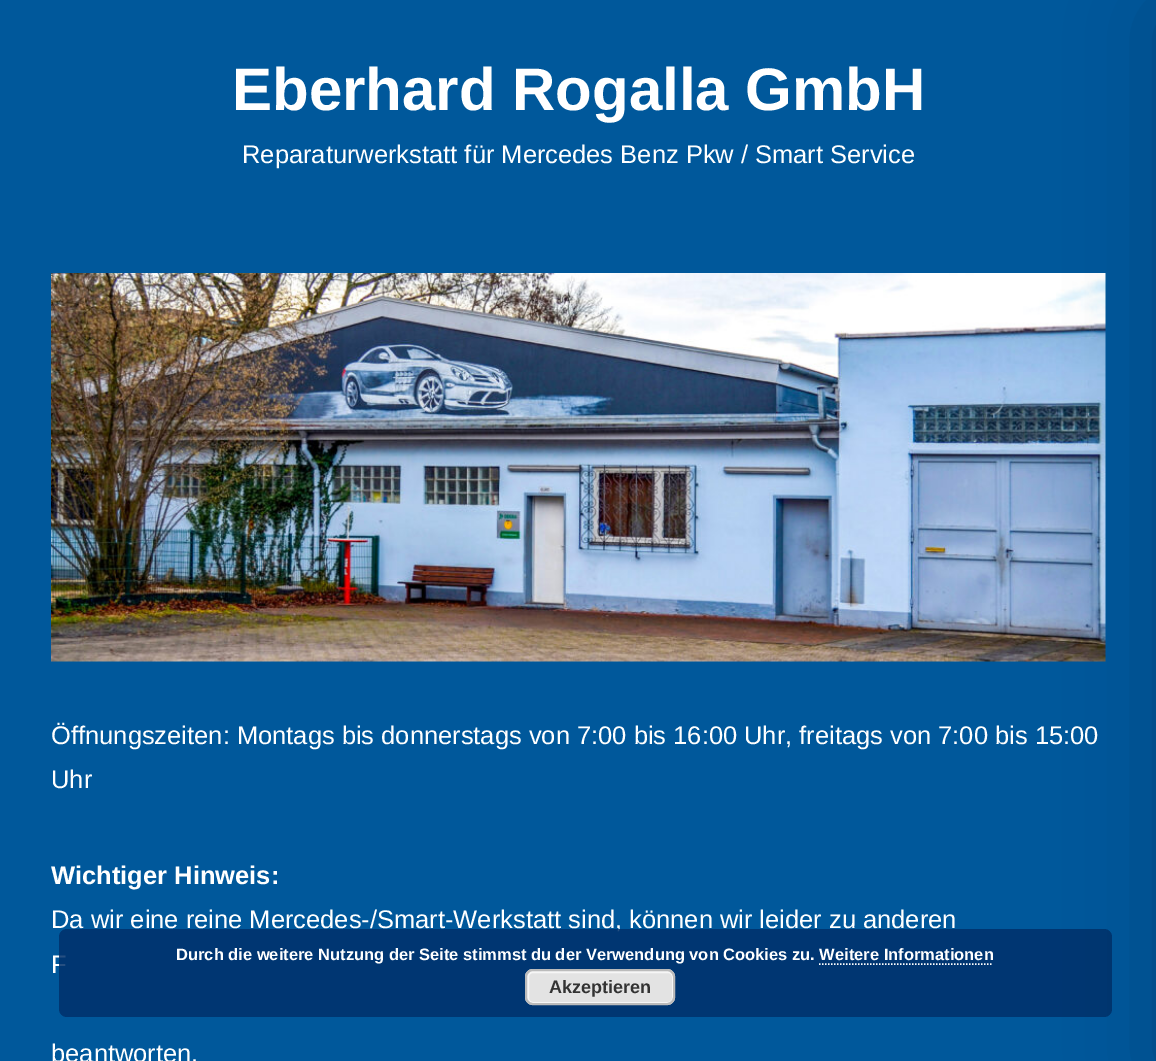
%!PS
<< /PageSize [1156 1061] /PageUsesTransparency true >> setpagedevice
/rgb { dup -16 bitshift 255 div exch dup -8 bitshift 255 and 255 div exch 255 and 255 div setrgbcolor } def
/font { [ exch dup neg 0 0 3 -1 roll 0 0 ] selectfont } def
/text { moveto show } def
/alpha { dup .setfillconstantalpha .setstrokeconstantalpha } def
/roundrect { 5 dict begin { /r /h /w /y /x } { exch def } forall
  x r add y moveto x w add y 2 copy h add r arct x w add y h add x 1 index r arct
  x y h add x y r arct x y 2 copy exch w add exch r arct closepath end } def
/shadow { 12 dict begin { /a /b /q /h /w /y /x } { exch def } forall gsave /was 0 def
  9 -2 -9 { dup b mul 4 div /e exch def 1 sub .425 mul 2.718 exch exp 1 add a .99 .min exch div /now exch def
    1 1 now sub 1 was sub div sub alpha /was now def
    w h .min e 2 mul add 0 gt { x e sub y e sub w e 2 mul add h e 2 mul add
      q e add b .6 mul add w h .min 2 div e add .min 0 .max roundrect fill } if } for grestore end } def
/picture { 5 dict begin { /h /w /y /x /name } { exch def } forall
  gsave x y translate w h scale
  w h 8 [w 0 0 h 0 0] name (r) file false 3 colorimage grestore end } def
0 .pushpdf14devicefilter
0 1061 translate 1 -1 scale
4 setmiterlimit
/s1 { /LiberationSans-Regular 25.5 font 16#FFFFFF rgb } def
/s2 { /LiberationSans-Bold 60 font 16#FFFFFF rgb } def
/s3 { /LiberationSans-Bold 25.5 font 16#FFFFFF rgb } def
/s4 { /LiberationSans-Bold 16.5 font 16#FFFFFF rgb } def
/s5 { /LiberationSans-Bold 18 font 16#333333 rgb } def
16#00589B rgb
0 0 1156 1061 rectfill
(pic1.raw) 51 273 1055 389 picture
s1
(Da wir eine reine Mercedes-/Smart-Werkstatt sind, können wir leider zu anderen) 51 928 text
(F) 51 973 text
0.85 alpha
16#00306B rgb
59 929 1053 88 8 roundrect fill
1 alpha
16#000000 rgb
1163 15 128 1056 0 45 0.2 shadow
s2
(Eberhard Rogalla GmbH) 232 110 text
s1
(Reparaturwerkstatt für Mercedes Benz Pkw / Smart Service) 242 163 text
(Öffnungszeiten: Montags bis donnerstags von 7:00 bis 16:00 Uhr, freitags von 7:00 bis 15:00) 51 744 text
(Uhr) 51 788 text
s3
(Wichtiger Hinweis:) 51 884 text
s1
(beantworten.) 51 1062 text
s4
(Durch die weitere Nutzung der Seite stimmst du der Verwendung von Cookies zu. Weitere Informationen) 176 960 text
1.5 setlinewidth
[1.5 1.5] 0 setdash
819 964 moveto 993 964 lineto stroke
16#E3E3E3 rgb
525 969 150 36 8 roundrect fill
16#F6F6F6 rgb
2 setlinewidth
[] 0 setdash
528 972 145 31 5 roundrect stroke
16#BBBBBB rgb
526 970 148 34 7 roundrect stroke
s5
(Akzeptieren) 549 993 text
.poppdf14devicefilter showpage
